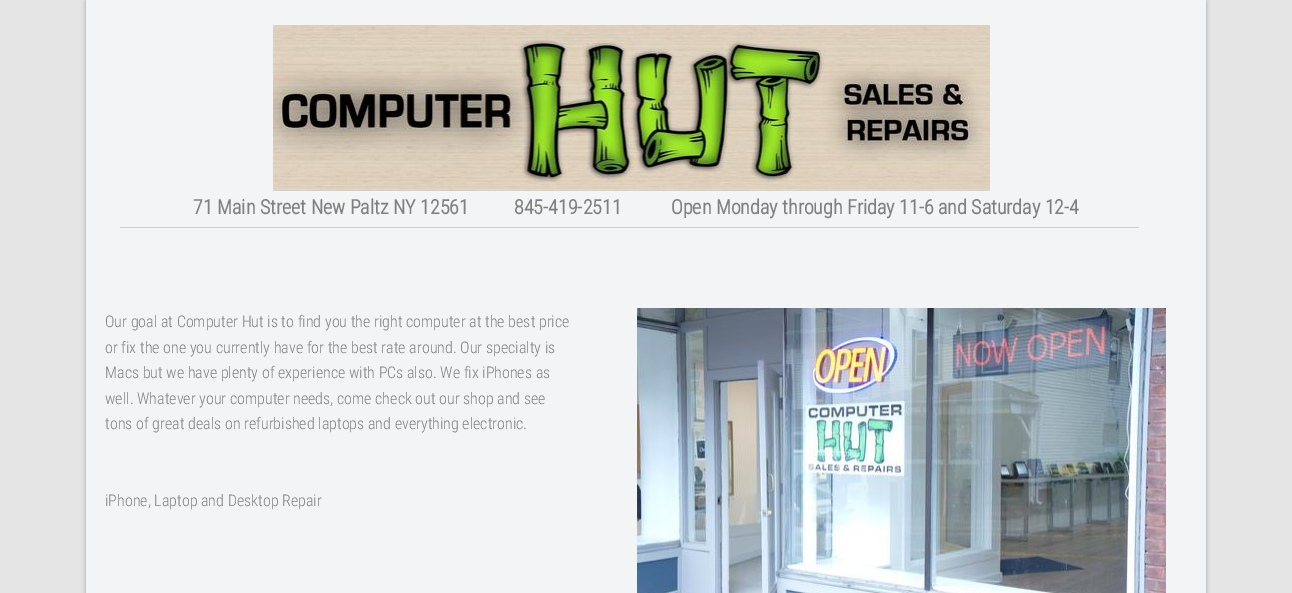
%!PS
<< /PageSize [1292 593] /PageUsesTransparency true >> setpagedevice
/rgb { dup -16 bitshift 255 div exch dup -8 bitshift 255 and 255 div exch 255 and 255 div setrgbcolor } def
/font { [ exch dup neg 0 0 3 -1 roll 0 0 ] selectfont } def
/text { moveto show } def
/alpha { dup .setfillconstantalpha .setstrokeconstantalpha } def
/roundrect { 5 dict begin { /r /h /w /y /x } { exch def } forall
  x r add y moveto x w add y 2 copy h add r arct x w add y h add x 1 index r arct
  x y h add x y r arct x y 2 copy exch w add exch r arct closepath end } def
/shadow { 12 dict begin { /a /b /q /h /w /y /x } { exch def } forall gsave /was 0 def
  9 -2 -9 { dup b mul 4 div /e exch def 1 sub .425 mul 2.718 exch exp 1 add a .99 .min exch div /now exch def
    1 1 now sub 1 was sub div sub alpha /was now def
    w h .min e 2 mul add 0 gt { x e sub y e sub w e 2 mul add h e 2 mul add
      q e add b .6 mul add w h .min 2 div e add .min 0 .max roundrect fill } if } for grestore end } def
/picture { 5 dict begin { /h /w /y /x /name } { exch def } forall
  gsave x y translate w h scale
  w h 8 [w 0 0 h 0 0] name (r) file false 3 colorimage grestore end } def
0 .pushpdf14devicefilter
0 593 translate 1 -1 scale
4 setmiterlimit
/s1 { /RobotoCondensed-Bold 20 font 16#808080 rgb } def
/s2 { /RobotoCondensed-Light 16 font 16#808080 rgb } def
16#E5E5E5 rgb
0 0 1292 593 rectfill
16#323232 rgb
86 1 1120 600 0 2.5 0.35 shadow
16#F3F4F5 rgb
86 0 1120 593 rectfill
(pic1.raw) 273 25 717 166 picture
s1
(71 Main Street New Paltz NY 12561          845-419-2511           Open Monday through Friday 11-6 and Saturday 12-4) 193 214 text
16#CCCCCC rgb
120 227 1019 1 rectfill
s2
(Our goal at Computer Hut is to find you the right computer at the best price) 105 327 text
(or fix the one you currently have for the best rate around. Our specialty is) 105 353 text
(Macs but we have plenty of experience with PCs also. We fix iPhones as) 105 378 text
(well. Whatever your computer needs, come check out our shop and see) 105 404 text
(tons of great deals on refurbished laptops and everything electronic.) 105 429 text
(iPhone, Laptop and Desktop Repair) 105 506 text
(pic2.raw) 637 308 529 285 picture
.poppdf14devicefilter showpage
